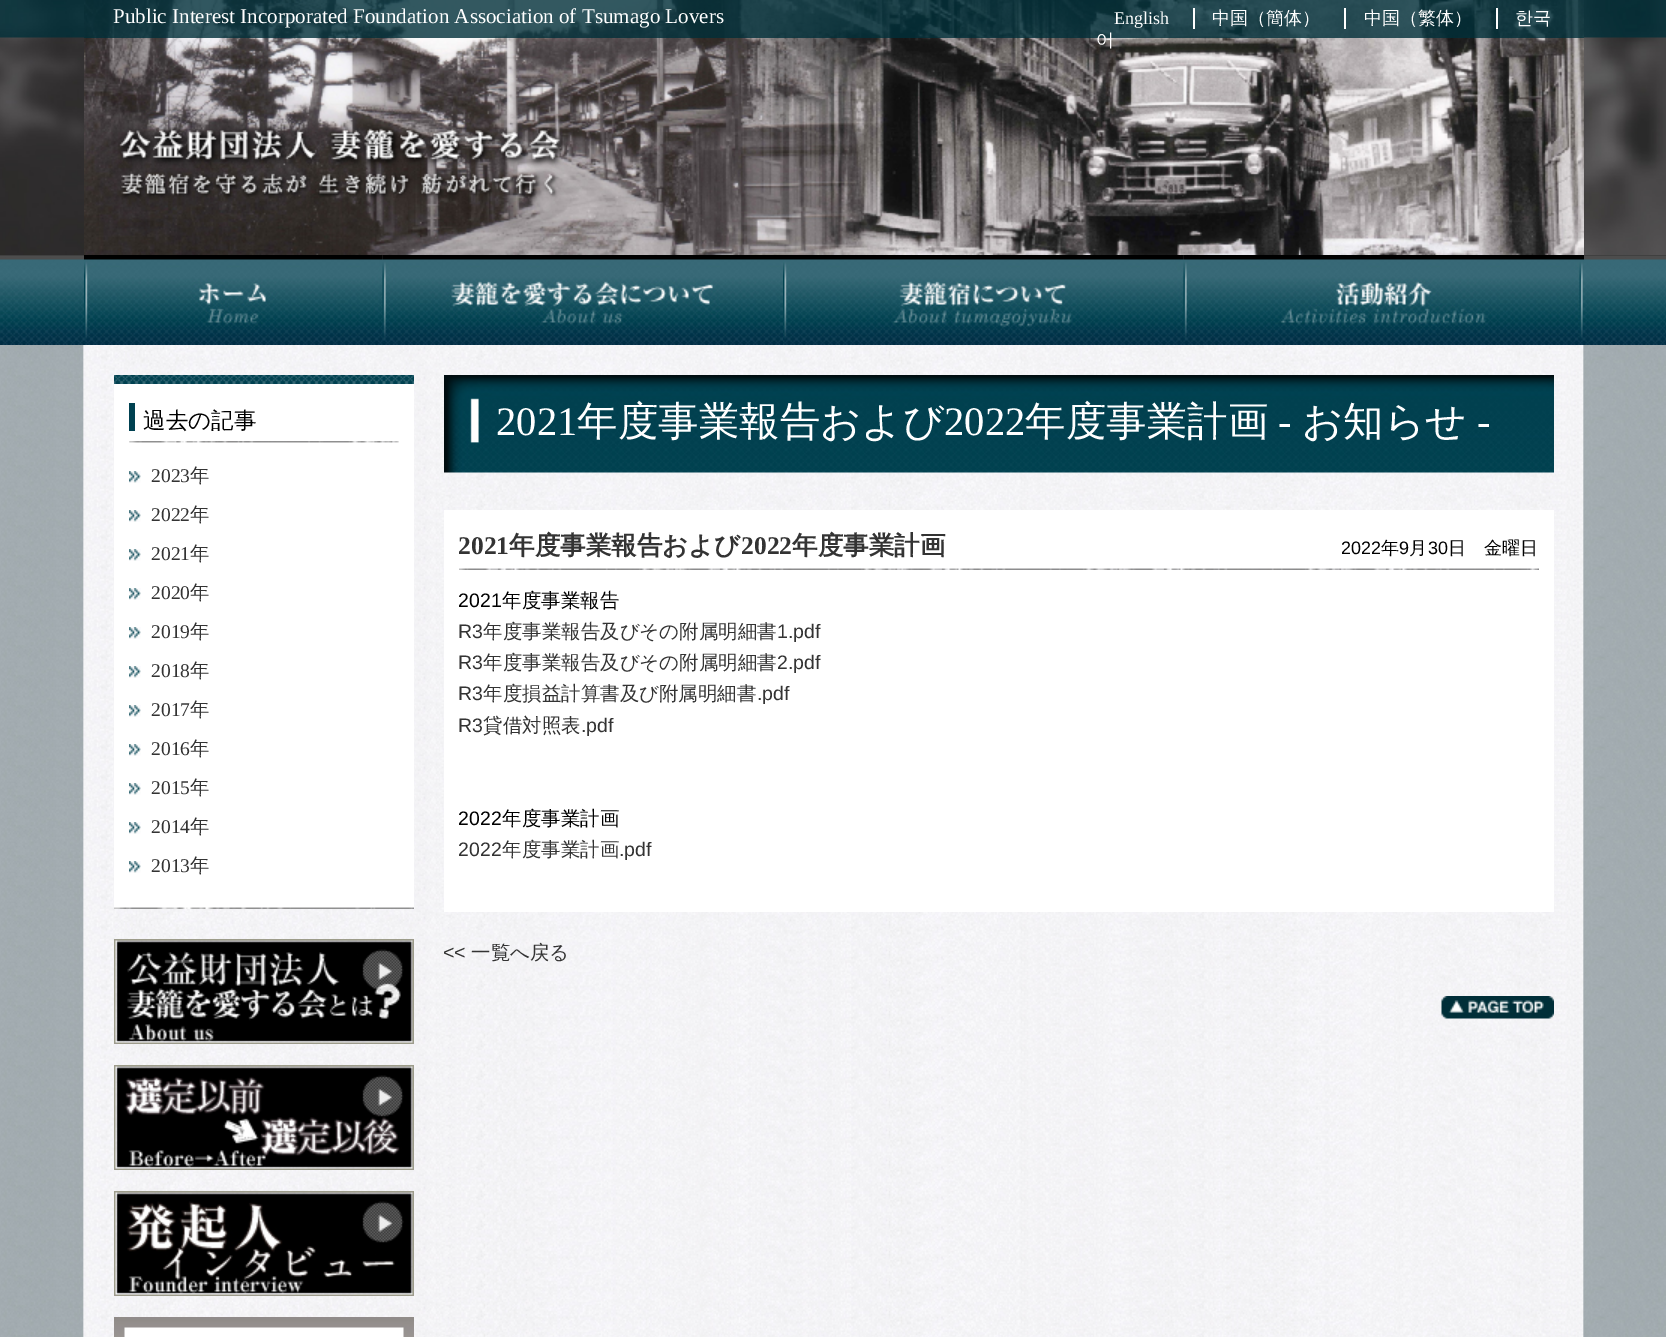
%!PS
<< /PageSize [1666 1337] /PageUsesTransparency true >> setpagedevice
/rgb { dup -16 bitshift 255 div exch dup -8 bitshift 255 and 255 div exch 255 and 255 div setrgbcolor } def
/font { [ exch dup neg 0 0 3 -1 roll 0 0 ] selectfont } def
/text { moveto show } def
/alpha { dup .setfillconstantalpha .setstrokeconstantalpha } def
/picture { 5 dict begin { /h /w /y /x /name } { exch def } forall
  gsave x y translate w h scale
  w h 8 [w 0 0 h 0 0] name (r) file false 3 colorimage grestore end } def
0 .pushpdf14devicefilter
0 1337 translate 1 -1 scale
4 setmiterlimit
/s1 { /LiberationSerif-Regular 21.05 font 16#FFFFFF rgb } def
/s2 { /LiberationSerif-Regular 18 font 16#FFFFFF rgb } def
/s3 { /WenQuanYiZenHei-Medium 18 font 16#FFFFFF rgb } def
/s4 { /WenQuanYiZenHei-Medium 22.5 font 16#000000 rgb } def
/s5 { /LiberationSerif-Regular 19.5 font 16#333333 rgb } def
/s6 { /WenQuanYiZenHei-Medium 19.5 font 16#333333 rgb } def
/s7 { /LiberationSerif-Regular 40.5 font 16#FFFFFF rgb } def
/s8 { /WenQuanYiZenHei-Medium 40.5 font 16#FFFFFF rgb } def
/s9 { /LiberationSerif-Bold 25.5 font 16#333333 rgb } def
/s10 { /WenQuanYiZenHei-Bold 25.5 font 16#333333 rgb } def
/s11 { /LiberationSans-Regular 18 font 16#000000 rgb } def
/s12 { /WenQuanYiZenHei-Medium 18 font 16#000000 rgb } def
/s13 { /LiberationSans-Regular 19.5 font 16#000000 rgb } def
/s14 { /WenQuanYiZenHei-Medium 19.5 font 16#000000 rgb } def
/s15 { /LiberationSans-Regular 19.5 font 16#333333 rgb } def
16#FFFFFF rgb
0 0 1666 1337 rectfill
(pic1.raw) 0 255 1666 90 picture
(pic2.raw) 0 0 1666 255 picture
(pic3.raw) 84 0 1500 255 picture
0.8 alpha
16#002F39 rgb
84 0 1500 38 rectfill
1 alpha
s1
(Public Interest Incorporated Foundation Association of Tsumago Lovers) 113 23 text
s2
(English) 1114 24 text
s3
(中国（簡体）) 1212 24 text
1193 8 2 21 rectfill
(中国（繁体）) 1364 24 text
1344 8 2 21 rectfill
(한국) 1515 24 text
1496 8 2 21 rectfill
(어) 1096 46 text
(pic4.raw) 118 125 447 74 picture
(pic5.raw) 84 255 299 90 picture
(pic6.raw) 382 255 401 90 picture
(pic7.raw) 783 255 401 90 picture
(pic8.raw) 1183 255 401 90 picture
(pic9.raw) 0 345 1666 992 picture
114 384 300 524 rectfill
(pic10.raw) 114 907 300 2 picture
(pic11.raw) 114 375 300 9 picture
(pic12.raw) 129 441 270 2 picture
16#004151 rgb
129 403 6 28 rectfill
s4
(過去の記事) 143 428 text
(pic13.raw) 129 471 12 12 picture
s5
(2023) 151 482 text
s6
(年) 190 482 text
(pic13.raw) 129 510 12 12 picture
s5
(2022) 151 521 text
s6
(年) 190 521 text
(pic13.raw) 129 549 12 12 picture
s5
(2021) 151 560 text
s6
(年) 190 560 text
(pic13.raw) 129 588 12 12 picture
s5
(2020) 151 599 text
s6
(年) 190 599 text
(pic13.raw) 129 627 12 12 picture
s5
(2019) 151 638 text
s6
(年) 190 638 text
(pic13.raw) 129 666 12 12 picture
s5
(2018) 151 677 text
s6
(年) 190 677 text
(pic13.raw) 129 705 12 12 picture
s5
(2017) 151 716 text
s6
(年) 190 716 text
(pic13.raw) 129 744 12 12 picture
s5
(2016) 151 755 text
s6
(年) 190 755 text
(pic13.raw) 129 783 12 12 picture
s5
(2015) 151 794 text
s6
(年) 190 794 text
(pic13.raw) 129 822 12 12 picture
s5
(2014) 151 833 text
s6
(年) 190 833 text
(pic13.raw) 129 861 12 12 picture
s5
(2013) 151 872 text
s6
(年) 190 872 text
(pic14.raw) 114 939 300 105 picture
(pic15.raw) 114 1065 300 105 picture
(pic16.raw) 114 1191 300 105 picture
(pic17.raw) 114 1317 300 20 picture
(pic18.raw) 444 375 1110 98 picture
s7
(2021) 496 435 text
s8
(年度事業報告および) 577 435 text
s7
(2022) 944 435 text
s8
(年度事業計画) 1025 435 text
s7
(-) 1278 435 text
s8
(お知らせ) 1302 435 text
s7
(-) 1477 435 text
444 510 1110 402 rectfill
(pic19.raw) 459 568 1080 2 picture
s9
(2021) 458 554 text
s10
(年度事業報告および) 509 554 text
s9
(2022) 741 554 text
s10
(年度事業計画) 792 554 text
s11
(2022) 1341 554 text
s12
(年) 1381 554 text
s11
(9) 1399 554 text
s12
(月) 1409 554 text
s11
(30) 1428 554 text
s12
(日　金曜日) 1448 554 text
s13
(2021) 458 607 text
s14
(年度事業報告) 502 607 text
s15
(R3) 458 638 text
s6
(年度事業報告及びその附属明細書) 483 638 text
s15
(1.pdf) 777 638 text
(R3) 458 669 text
s6
(年度事業報告及びその附属明細書) 483 669 text
s15
(2.pdf) 777 669 text
(R3) 458 700 text
s6
(年度損益計算書及び附属明細書) 483 700 text
s15
(.pdf) 757 700 text
(R3) 458 732 text
s6
(貸借対照表) 483 732 text
s15
(.pdf) 581 732 text
s13
(2022) 458 825 text
s14
(年度事業計画) 502 825 text
s15
(2022) 458 856 text
s6
(年度事業計画) 502 856 text
s15
(.pdf) 619 856 text
(<<) 443 959 text
s6
(一覧へ戻る) 471 959 text
(pic20.raw) 1441 996 113 23 picture
.poppdf14devicefilter showpage
